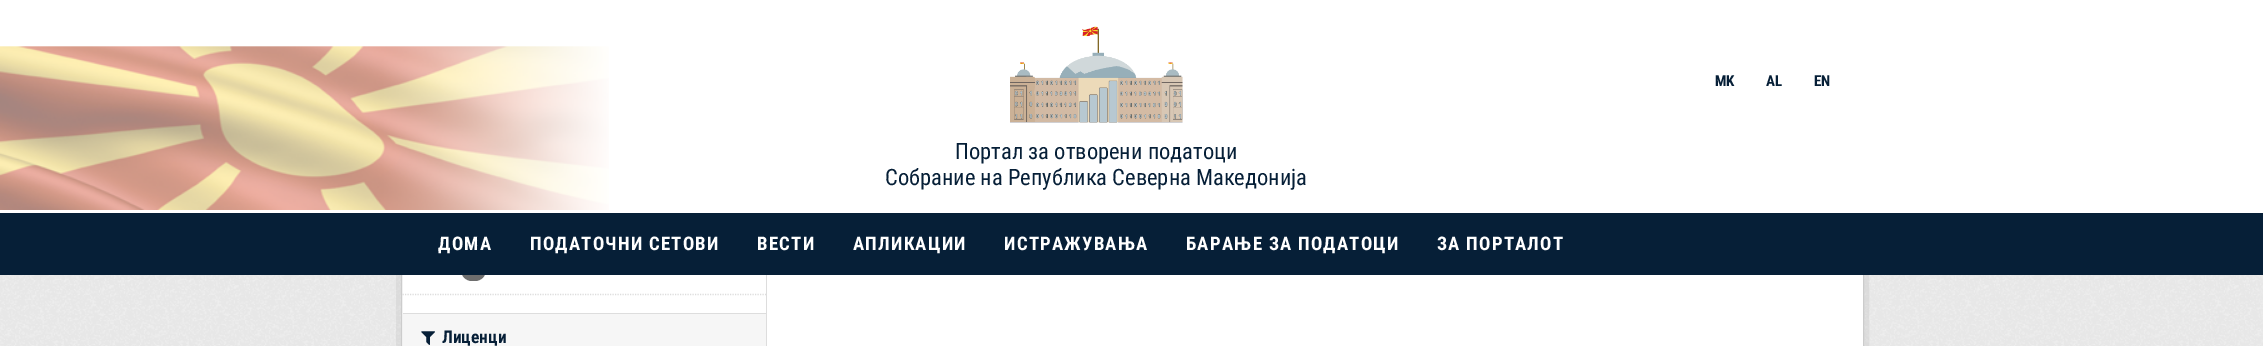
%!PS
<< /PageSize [2263 346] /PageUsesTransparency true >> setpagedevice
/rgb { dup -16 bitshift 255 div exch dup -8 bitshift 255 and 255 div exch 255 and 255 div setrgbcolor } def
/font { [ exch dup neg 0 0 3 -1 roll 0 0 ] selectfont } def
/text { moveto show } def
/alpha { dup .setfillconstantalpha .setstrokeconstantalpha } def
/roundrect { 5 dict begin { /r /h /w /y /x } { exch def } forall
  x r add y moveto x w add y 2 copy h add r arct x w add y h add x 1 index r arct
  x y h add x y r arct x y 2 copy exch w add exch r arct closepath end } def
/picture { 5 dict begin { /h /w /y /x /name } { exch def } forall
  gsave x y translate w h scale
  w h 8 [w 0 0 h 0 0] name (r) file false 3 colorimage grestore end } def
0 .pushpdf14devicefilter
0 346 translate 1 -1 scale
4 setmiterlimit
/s1 { /RobotoCondensed-Bold 15 font 16#061F37 rgb } def
/s2 { /RobotoCondensed-Regular 22.5 font 16#061F37 rgb } def
/s3 { /RobotoCondensed-Bold 17.5 font 16#061F37 rgb } def
16#EEEEEE rgb
0 0 2263 346 rectfill
(pic3.raw) 0 275 2263 71 picture
0.05 alpha
16#000000 rgb
5 setlinewidth
398.5 -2.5 1468 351 rectstroke
1 alpha
16#FFFFFF rgb
402 275 1461 71 rectfill
16#CCCCCC rgb
1 setlinewidth
401.5 -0.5 1462 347 rectstroke
16#FFFFFF rgb
0 0 2263 213 rectfill
s1
(MK) 1715 86 text
(AL) 1766 86 text
(EN) 1814 86 text
(pic1.raw) 0 46 609 164 picture
(pic2.raw) 1010 26 173 97 picture
s2
(Портал за отворени податоци) 955 159 text
(Собрание на Република Северна Македонија) 885 185 text
16#6E6E6E rgb
461 259 25 22 11 roundrect fill
16#061F37 rgb
0 213 2263 62 rectfill
/RobotoCondensed-Bold 18.75 font
16#FFFFFF rgb
438 250 moveto 1.25 0 (ДОМА) ashow
530 250 moveto 1.25 0 (ПОДАТОЧНИ СЕТОВИ) ashow
757 250 moveto 1.25 0 (ВЕСТИ) ashow
853 250 moveto 1.25 0 (АПЛИКАЦИИ) ashow
1004 250 moveto 1.25 0 (ИСТРАЖУВАЊА) ashow
1186 250 moveto 1.25 0 (БАРАЊЕ ЗА ПОДАТОЦИ) ashow
1437 250 moveto 1.25 0 (ЗА ПОРТАЛОТ) ashow
16#DDDDDD rgb
1.2 setlinewidth
[1.25 1.25] 0 setdash
402.5 294.5 moveto 766 294.5 lineto stroke
16#F6F6F6 rgb
403 314 363 32 rectfill
16#DDDDDD rgb
403 313 363 1 rectfill
(pic4.raw) 421 331 14 14 picture
s3
(Лиценци) 442 343 text
16#DDDDDD rgb
766 275 1 71 rectfill
.poppdf14devicefilter showpage
